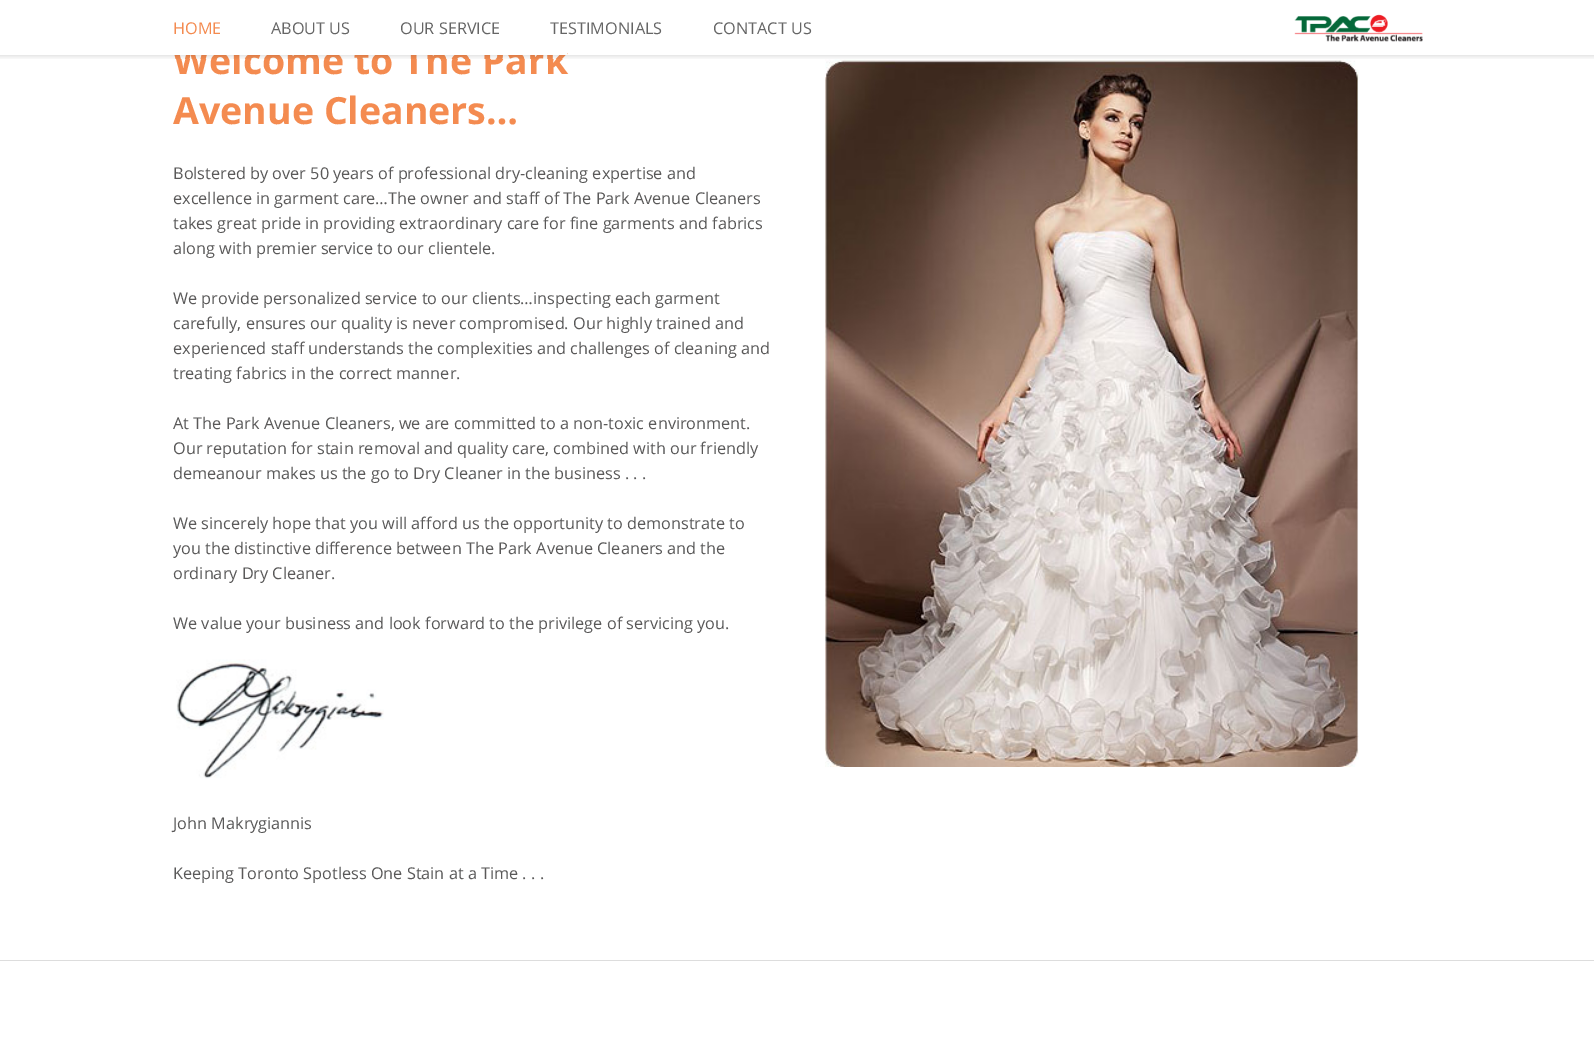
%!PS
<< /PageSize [1594 1058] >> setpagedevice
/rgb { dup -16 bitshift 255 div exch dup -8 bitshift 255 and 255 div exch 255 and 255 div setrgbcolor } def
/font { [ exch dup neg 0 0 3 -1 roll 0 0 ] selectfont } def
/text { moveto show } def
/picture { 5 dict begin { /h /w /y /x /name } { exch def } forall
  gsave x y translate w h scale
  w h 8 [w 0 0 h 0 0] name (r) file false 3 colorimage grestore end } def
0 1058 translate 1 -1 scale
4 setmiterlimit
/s1 { /OpenSans-Bold 37.5 font 16#F48B50 rgb } def
/s2 { /OpenSans-Regular 16.25 font 16#F48B50 rgb } def
/s3 { /OpenSans-Regular 16.25 font 16#666666 rgb } def
/s4 { /OpenSans-Regular 16.25 font 16#5A5959 rgb } def
16#FFFFFF rgb
0 0 1594 1058 rectfill
s1
(Welcome to The Park) 173 74 text
16#FFFFFF rgb
172 45 395 10 rectfill
s2
(HOME) 173 34 text
s3
(ABOUT US) 271 34 text
(OUR SERVICE) 400 34 text
(TESTIMONIALS) 550 34 text
(CONTACT US) 713 34 text
(pic1.raw) 1294 14 129 28 picture
(pic2.raw) 0 55 1594 4 picture
s1
(Avenue Cleaners…) 173 124 text
s4
(Bolstered by over 50 years of professional dry-cleaning expertise and) 173 179 text
(excellence in garment care…The owner and staff of The Park Avenue Cleaners) 173 204 text
(takes great pride in providing extraordinary care for fine garments and fabrics) 173 229 text
(along with premier service to our clientele.) 173 254 text
(We provide personalized service to our clients…inspecting each garment) 173 304 text
(carefully, ensures our quality is never compromised. Our highly trained and) 173 329 text
(experienced staff understands the complexities and challenges of cleaning and) 173 354 text
(treating fabrics in the correct manner.) 173 379 text
(At The Park Avenue Cleaners, we are committed to a non-toxic environment.) 173 429 text
(Our reputation for stain removal and quality care, combined with our friendly) 173 454 text
(demeanour makes us the go to Dry Cleaner in the business . . .) 173 479 text
(We sincerely hope that you will afford us the opportunity to demonstrate to) 173 529 text
(you the distinctive difference between The Park Avenue Cleaners and the) 173 554 text
(ordinary Dry Cleaner.) 173 579 text
(We value your business and look forward to the privilege of servicing you.) 173 629 text
(pic3.raw) 176 659 208 120 picture
(John Makrygiannis) 173 829 text
(Keeping Toronto Spotless One Stain at a Time . . .) 173 879 text
(pic4.raw) 825 59 534 708 picture
16#DDDDDD rgb
0 960 1594 1 rectfill
showpage
